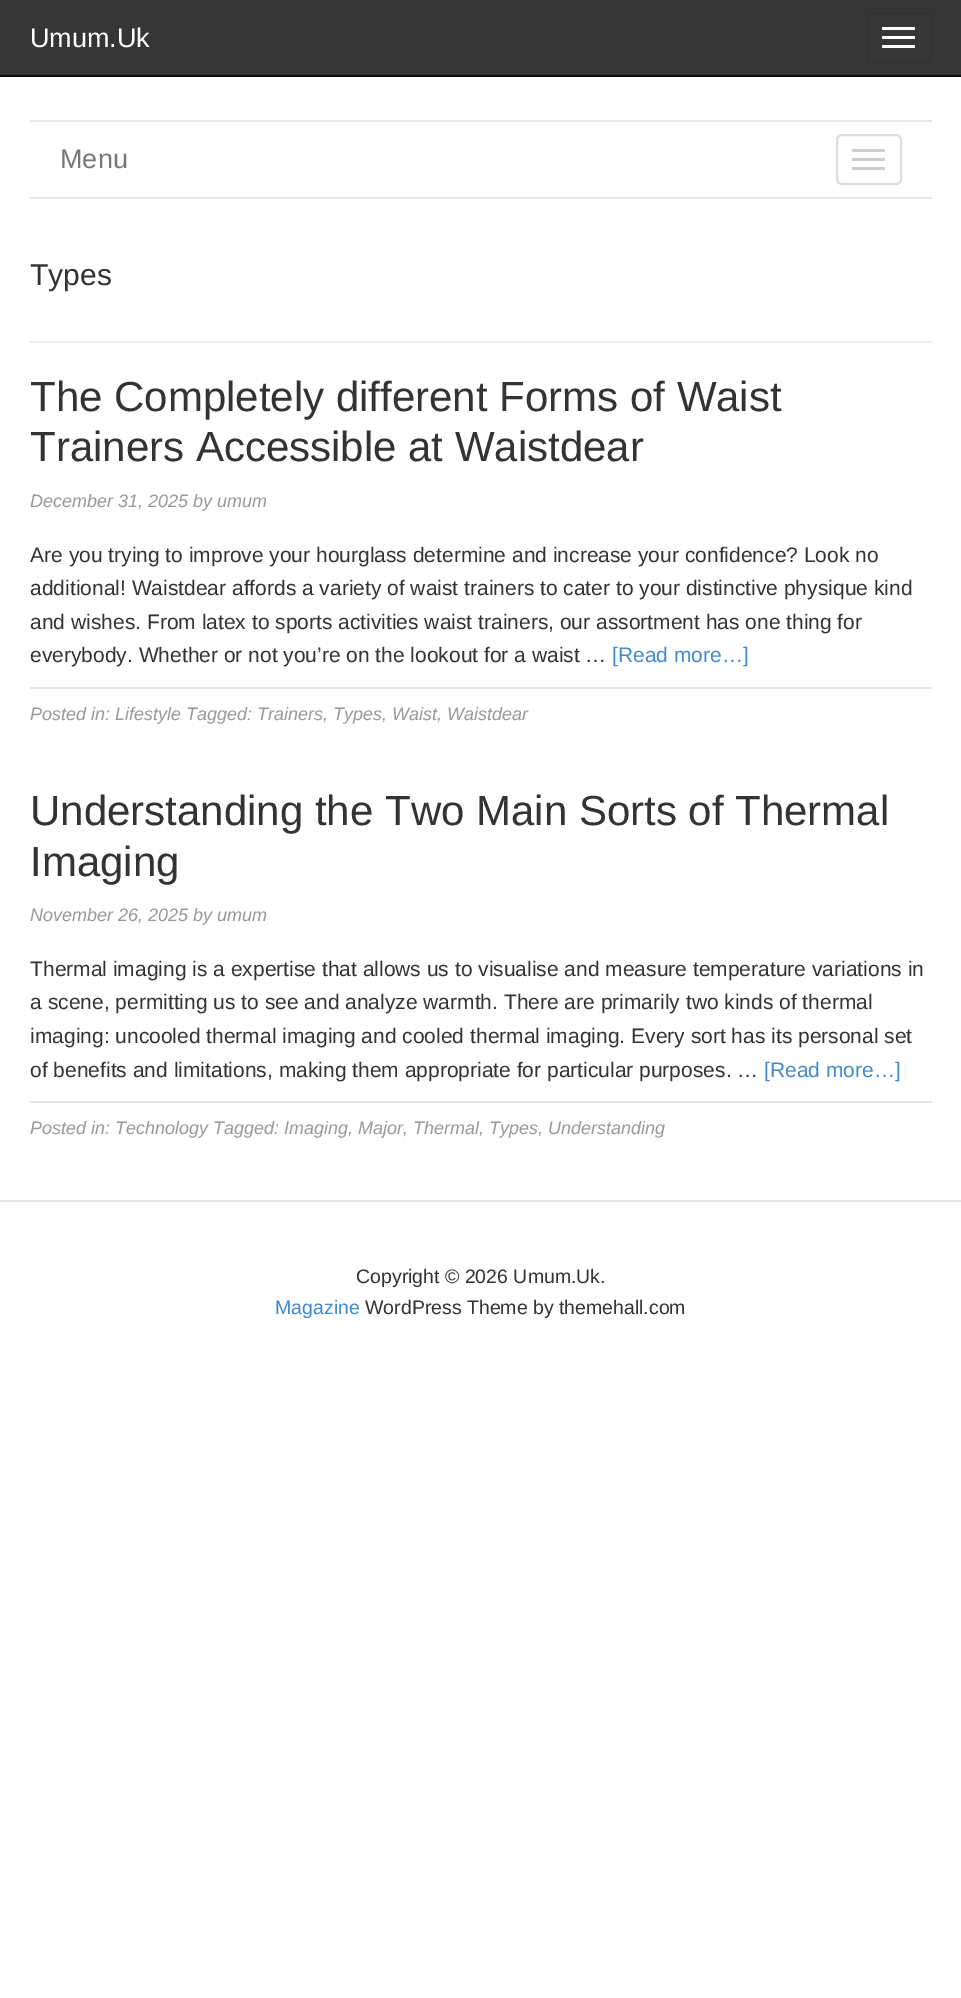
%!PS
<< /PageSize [961 1998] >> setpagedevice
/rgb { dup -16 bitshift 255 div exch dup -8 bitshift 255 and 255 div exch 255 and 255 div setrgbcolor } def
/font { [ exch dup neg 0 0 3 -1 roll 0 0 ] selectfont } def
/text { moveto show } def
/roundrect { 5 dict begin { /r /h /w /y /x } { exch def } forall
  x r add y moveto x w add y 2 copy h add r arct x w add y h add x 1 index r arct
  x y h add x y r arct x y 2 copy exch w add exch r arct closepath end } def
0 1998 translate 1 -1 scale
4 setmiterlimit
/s1 { /LiberationSans-Regular 27 font 16#FFFFFF rgb } def
/s2 { /LiberationSans-Regular 27 font 16#777777 rgb } def
/s3 { /LiberationSans-Regular 30 font 16#333333 rgb } def
/s4 { /LiberationSans-Regular 42 font 16#333333 rgb } def
/s5 { /LiberationSans-Italic 18 font 16#999999 rgb } def
/s6 { /LiberationSans-Regular 21 font 16#333333 rgb } def
/s7 { /LiberationSans-Regular 21 font 16#428BCA rgb } def
/s8 { /LiberationSans-Regular 19.5 font 16#333333 rgb } def
/s9 { /LiberationSans-Regular 19.5 font 16#428BCA rgb } def
16#FFFFFF rgb
0 0 961 1998 rectfill
16#363636 rgb
0 0 961 75 rectfill
16#080808 rgb
0 75 961 2 rectfill
s1
(Umum.Uk) 30 47 text
16#333333 rgb
2 setlinewidth
867 13 64 49 5 roundrect stroke
16#FFFFFF rgb
882 27 33 3 1.5 roundrect fill
882 36 33 3 1.5 roundrect fill
882 45 33 3 1.5 roundrect fill
16#E7E7E7 rgb
30 120 902 2 rectfill
30 197 902 2 rectfill
s2
(Menu) 60 168 text
16#DDDDDD rgb
837 135 64 49 5 roundrect stroke
16#CCCCCC rgb
852 149 33 3 1.5 roundrect fill
852 158 33 3 1.5 roundrect fill
852 167 33 3 1.5 roundrect fill
16#EEEEEE rgb
30 341 902 2 rectfill
s3
(Types) 30 285 text
s4
(The Completely different Forms of Waist) 30 411 text
(Trainers Accessible at Waistdear) 30 461 text
s5
(December 31, 2025 by umum) 30 507 text
s6
(Are you trying to improve your hourglass determine and increase your confidence? Look no) 30 562 text
(additional! Waistdear affords a variety of waist trainers to cater to your distinctive physique kind) 30 595 text
(and wishes. From latex to sports activities waist trainers, our assortment has one thing for) 30 629 text
(everybody. Whether or not you’re on the lookout for a waist …) 30 662 text
s7
([Read more…]) 612 662 text
16#E5E5E5 rgb
30 687 902 2 rectfill
s5
(Posted in: Lifestyle Tagged: Trainers, Types, Waist, Waistdear) 30 720 text
s4
(Understanding the Two Main Sorts of Thermal) 30 825 text
(Imaging) 30 876 text
s5
(November 26, 2025 by umum) 30 921 text
s6
(Thermal imaging is a expertise that allows us to visualise and measure temperature variations in) 30 976 text
(a scene, permitting us to see and analyze warmth. There are primarily two kinds of thermal) 30 1009 text
(imaging: uncooled thermal imaging and cooled thermal imaging. Every sort has its personal set) 30 1043 text
(of benefits and limitations, making them appropriate for particular purposes. …) 30 1077 text
s7
([Read more…]) 764 1077 text
16#E5E5E5 rgb
30 1101 902 2 rectfill
s5
(Posted in: Technology Tagged: Imaging, Major, Thermal, Types, Understanding) 30 1134 text
16#E5E5E5 rgb
0 1200 961 2 rectfill
s8
(Copyright © 2026 Umum.Uk.) 356 1283 text
s9
(Magazine) 275 1314 text
s8
(WordPress Theme by themehall.com) 365 1314 text
showpage
